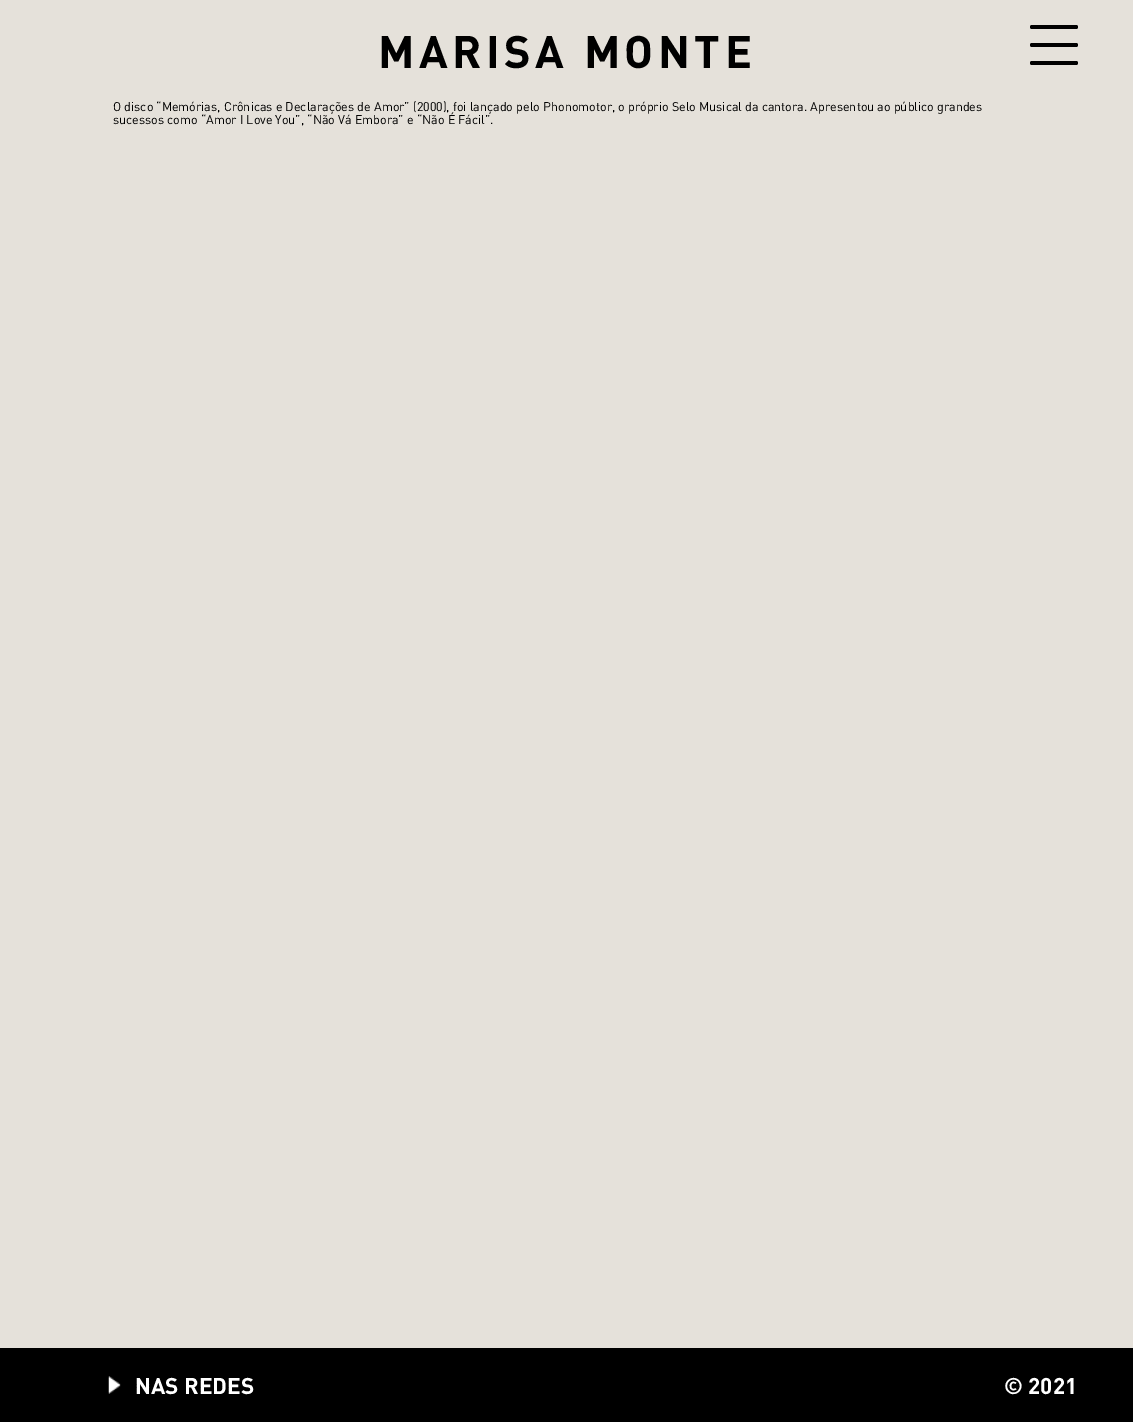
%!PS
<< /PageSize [1133 1422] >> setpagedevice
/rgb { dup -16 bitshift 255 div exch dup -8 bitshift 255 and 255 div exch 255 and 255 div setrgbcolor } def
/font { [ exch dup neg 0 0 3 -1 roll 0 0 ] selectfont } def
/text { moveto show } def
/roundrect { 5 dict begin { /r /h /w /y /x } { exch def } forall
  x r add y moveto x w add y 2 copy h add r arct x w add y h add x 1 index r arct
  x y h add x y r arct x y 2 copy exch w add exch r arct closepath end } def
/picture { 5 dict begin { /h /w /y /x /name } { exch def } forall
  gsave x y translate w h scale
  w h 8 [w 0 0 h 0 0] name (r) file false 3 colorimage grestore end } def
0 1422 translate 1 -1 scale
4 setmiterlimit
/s1 { /DIN-Regular 12.5 font 16#000000 rgb } def
/s2 { /DIN-Bold 22.5 font 16#FFFFFF rgb } def
16#E5E1DA rgb
0 0 1133 1422 rectfill
/DIN-Bold 45 font
16#000000 rgb
378 68 moveto 4.5 0 (MARISA MONTE) ashow
1030 25 48 4 2 roundrect fill
1030 43 48 4 2 roundrect fill
1030 61 48 4 2 roundrect fill
s1
(O disco “Memórias, Crônicas e Declarações de Amor” \(2000\), foi lançado pelo Phonomotor, o próprio Selo Musical da cantora. Apresentou ao público grandes) 113 111 text
(sucessos como “Amor I Love You”, “Não Vá Embora” e “Não É Fácil”.) 113 124 text
0 1348 1133 74 rectfill
(pic1.raw) 108 1376 13 18 picture
s2
(NAS REDES) 135 1394 text
(© 2021) 1004 1394 text
showpage
